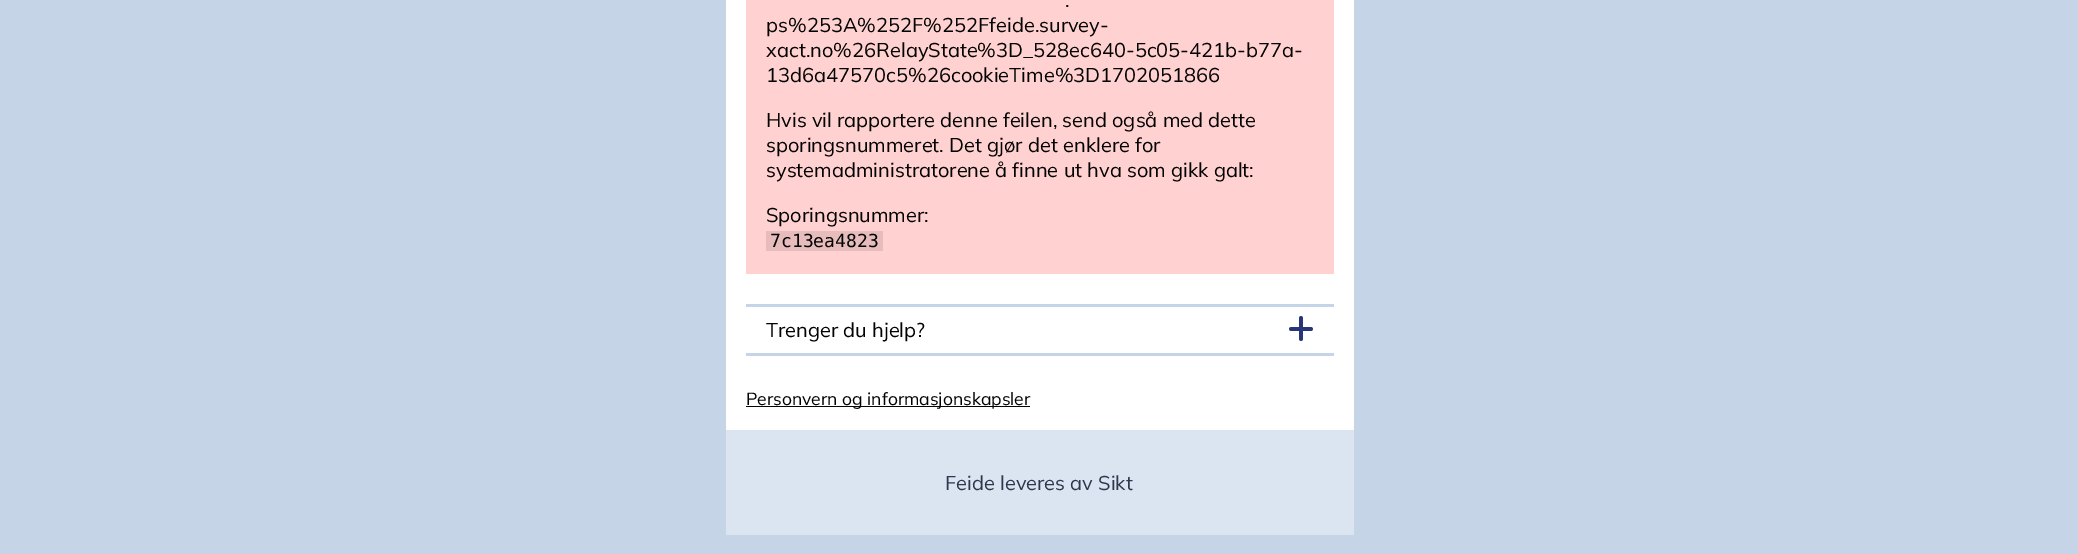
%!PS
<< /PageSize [2078 554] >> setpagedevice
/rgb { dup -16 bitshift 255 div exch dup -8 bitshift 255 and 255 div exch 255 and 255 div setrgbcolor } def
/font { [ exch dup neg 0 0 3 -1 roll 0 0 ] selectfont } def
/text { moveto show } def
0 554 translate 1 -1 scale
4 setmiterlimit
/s1 { /Mulish-ExtraLight 20 font 16#020202 rgb } def
/s2 { /DejaVuSansMono-Regular 18 font 16#020202 rgb } def
/s3 { /Mulish-ExtraLight 17.5 font 16#020202 rgb } def
/s4 { /Mulish-ExtraLight 20 font 16#2D384C rgb } def
16#C5D4E7 rgb
0 0 2078 554 rectfill
16#FFFFFF rgb
726 0 628 430 rectfill
16#FFD1D1 rgb
746 0 588 274 rectfill
s1
(.) 1065 7 text
(ps%253A%252F%252Ffeide.survey-) 766 32 text
(xact.no%26RelayState%3D_528ec640-5c05-421b-b77a-) 766 57 text
(13d6a47570c5%26cookieTime%3D1702051866) 766 82 text
(Hvis vil rapportere denne feilen, send også med dette) 766 127 text
(sporingsnummeret. Det gjør det enklere for) 766 152 text
(systemadministratorene å finne ut hva som gikk galt:) 766 177 text
(Sporingsnummer:) 766 222 text
16#E6BCBC rgb
766 231 117 20 rectfill
s2
(7c13ea4823) 770 247 text
16#C5D4E7 rgb
746 304 588 3 rectfill
746 353 588 3 rectfill
s1
(Trenger du hjelp?) 766 337 text
16#283678 rgb
3.8 setlinewidth
1 setlinecap
1 setlinejoin
1301 339 moveto 1301 318 lineto 1301 329 lineto 1291 329 moveto 1311 329 lineto 1301 329 lineto stroke
16#040404 rgb
746 406 284 1 rectfill
s3
(Personvern og informasjonskapsler) 746 405 text
16#DBE5F1 rgb
726 430 628 105 rectfill
s4
(Feide leveres av Sikt) 945 490 text
showpage
